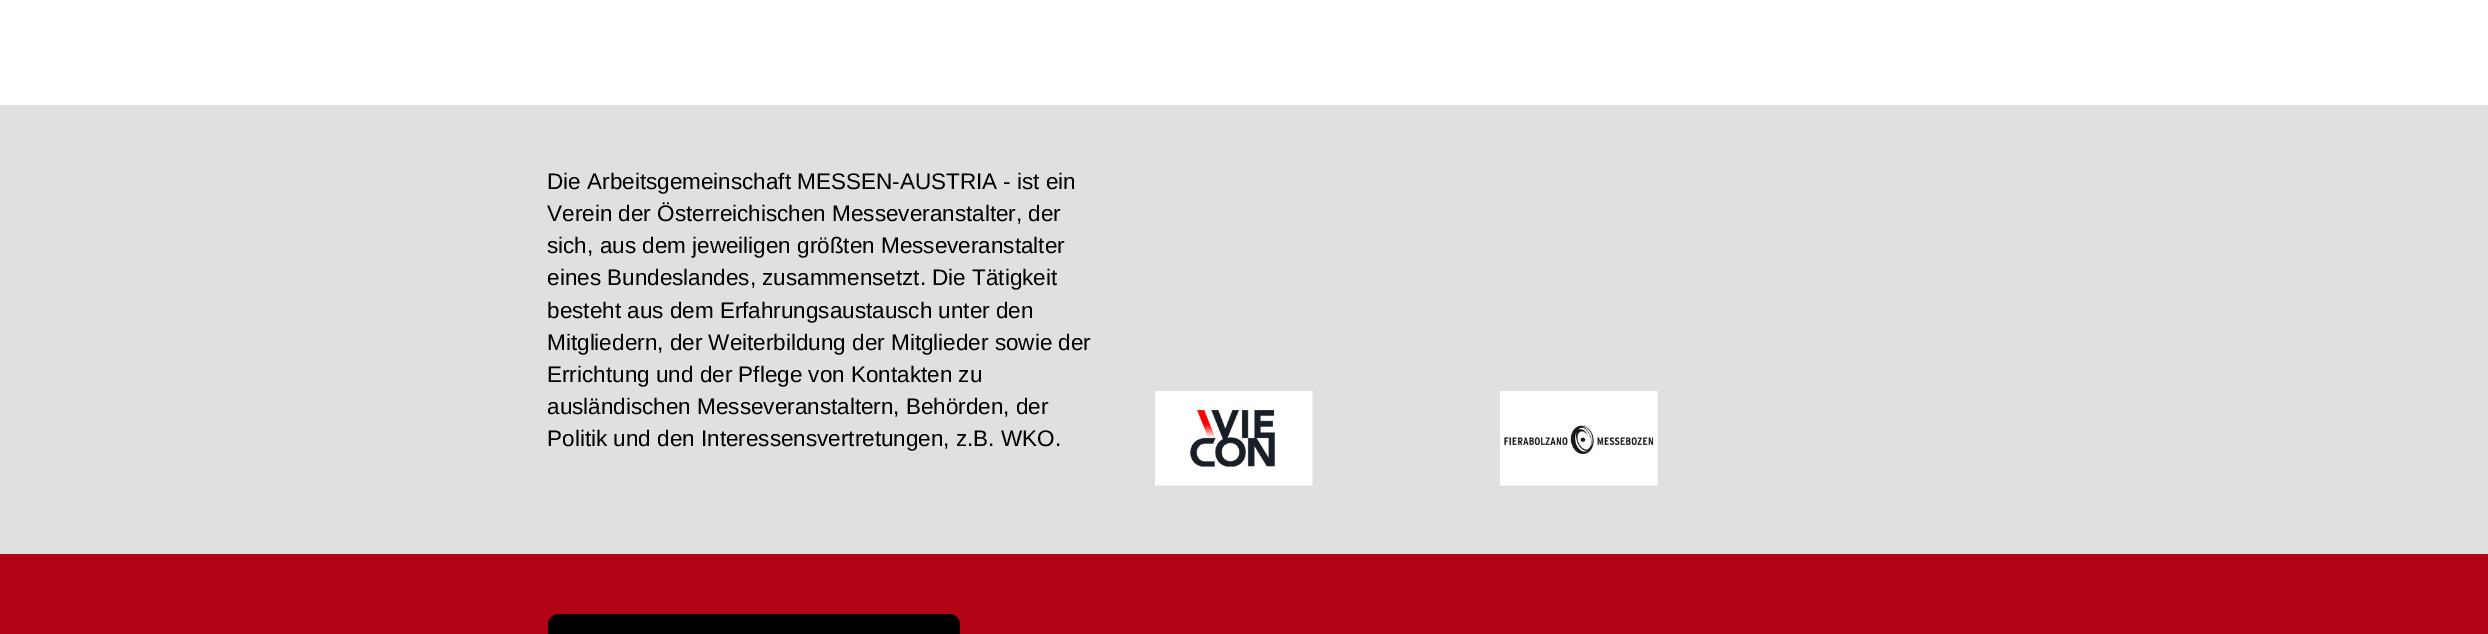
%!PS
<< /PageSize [2488 634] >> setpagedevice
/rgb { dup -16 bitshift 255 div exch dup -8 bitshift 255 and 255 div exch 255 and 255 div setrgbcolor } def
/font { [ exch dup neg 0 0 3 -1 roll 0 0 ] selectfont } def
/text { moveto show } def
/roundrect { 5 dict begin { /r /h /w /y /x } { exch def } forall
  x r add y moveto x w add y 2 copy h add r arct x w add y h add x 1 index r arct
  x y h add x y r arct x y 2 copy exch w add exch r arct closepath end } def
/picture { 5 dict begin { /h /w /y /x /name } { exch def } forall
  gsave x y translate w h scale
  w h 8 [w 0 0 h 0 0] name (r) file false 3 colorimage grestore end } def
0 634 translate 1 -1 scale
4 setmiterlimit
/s1 { /LiberationSans-Regular 22.5 font 16#000000 rgb } def
16#FFFFFF rgb
0 0 2488 634 rectfill
16#E1E0E0 rgb
0 105 2488 449 rectfill
s1
(Die Arbeitsgemeinschaft MESSEN-AUSTRIA - ist ein) 547 189 text
(Verein der Österreichischen Messeveranstalter, der) 547 221 text
(sich, aus dem jeweiligen größten Messeveranstalter) 547 253 text
(eines Bundeslandes, zusammensetzt. Die Tätigkeit) 547 285 text
(besteht aus dem Erfahrungsaustausch unter den) 547 318 text
(Mitgliedern, der Weiterbildung der Mitglieder sowie der) 547 350 text
(Errichtung und der Pflege von Kontakten zu) 547 382 text
(ausländischen Messeveranstaltern, Behörden, der) 547 414 text
(Politik und den Interessensvertretungen, z.B. WKO.) 547 446 text
(pic1.raw) 1155 391 158 95 picture
(pic2.raw) 1500 391 158 95 picture
16#B30415 rgb
0 554 2488 80 rectfill
16#000000 rgb
548 614 412 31 11 roundrect fill
showpage
